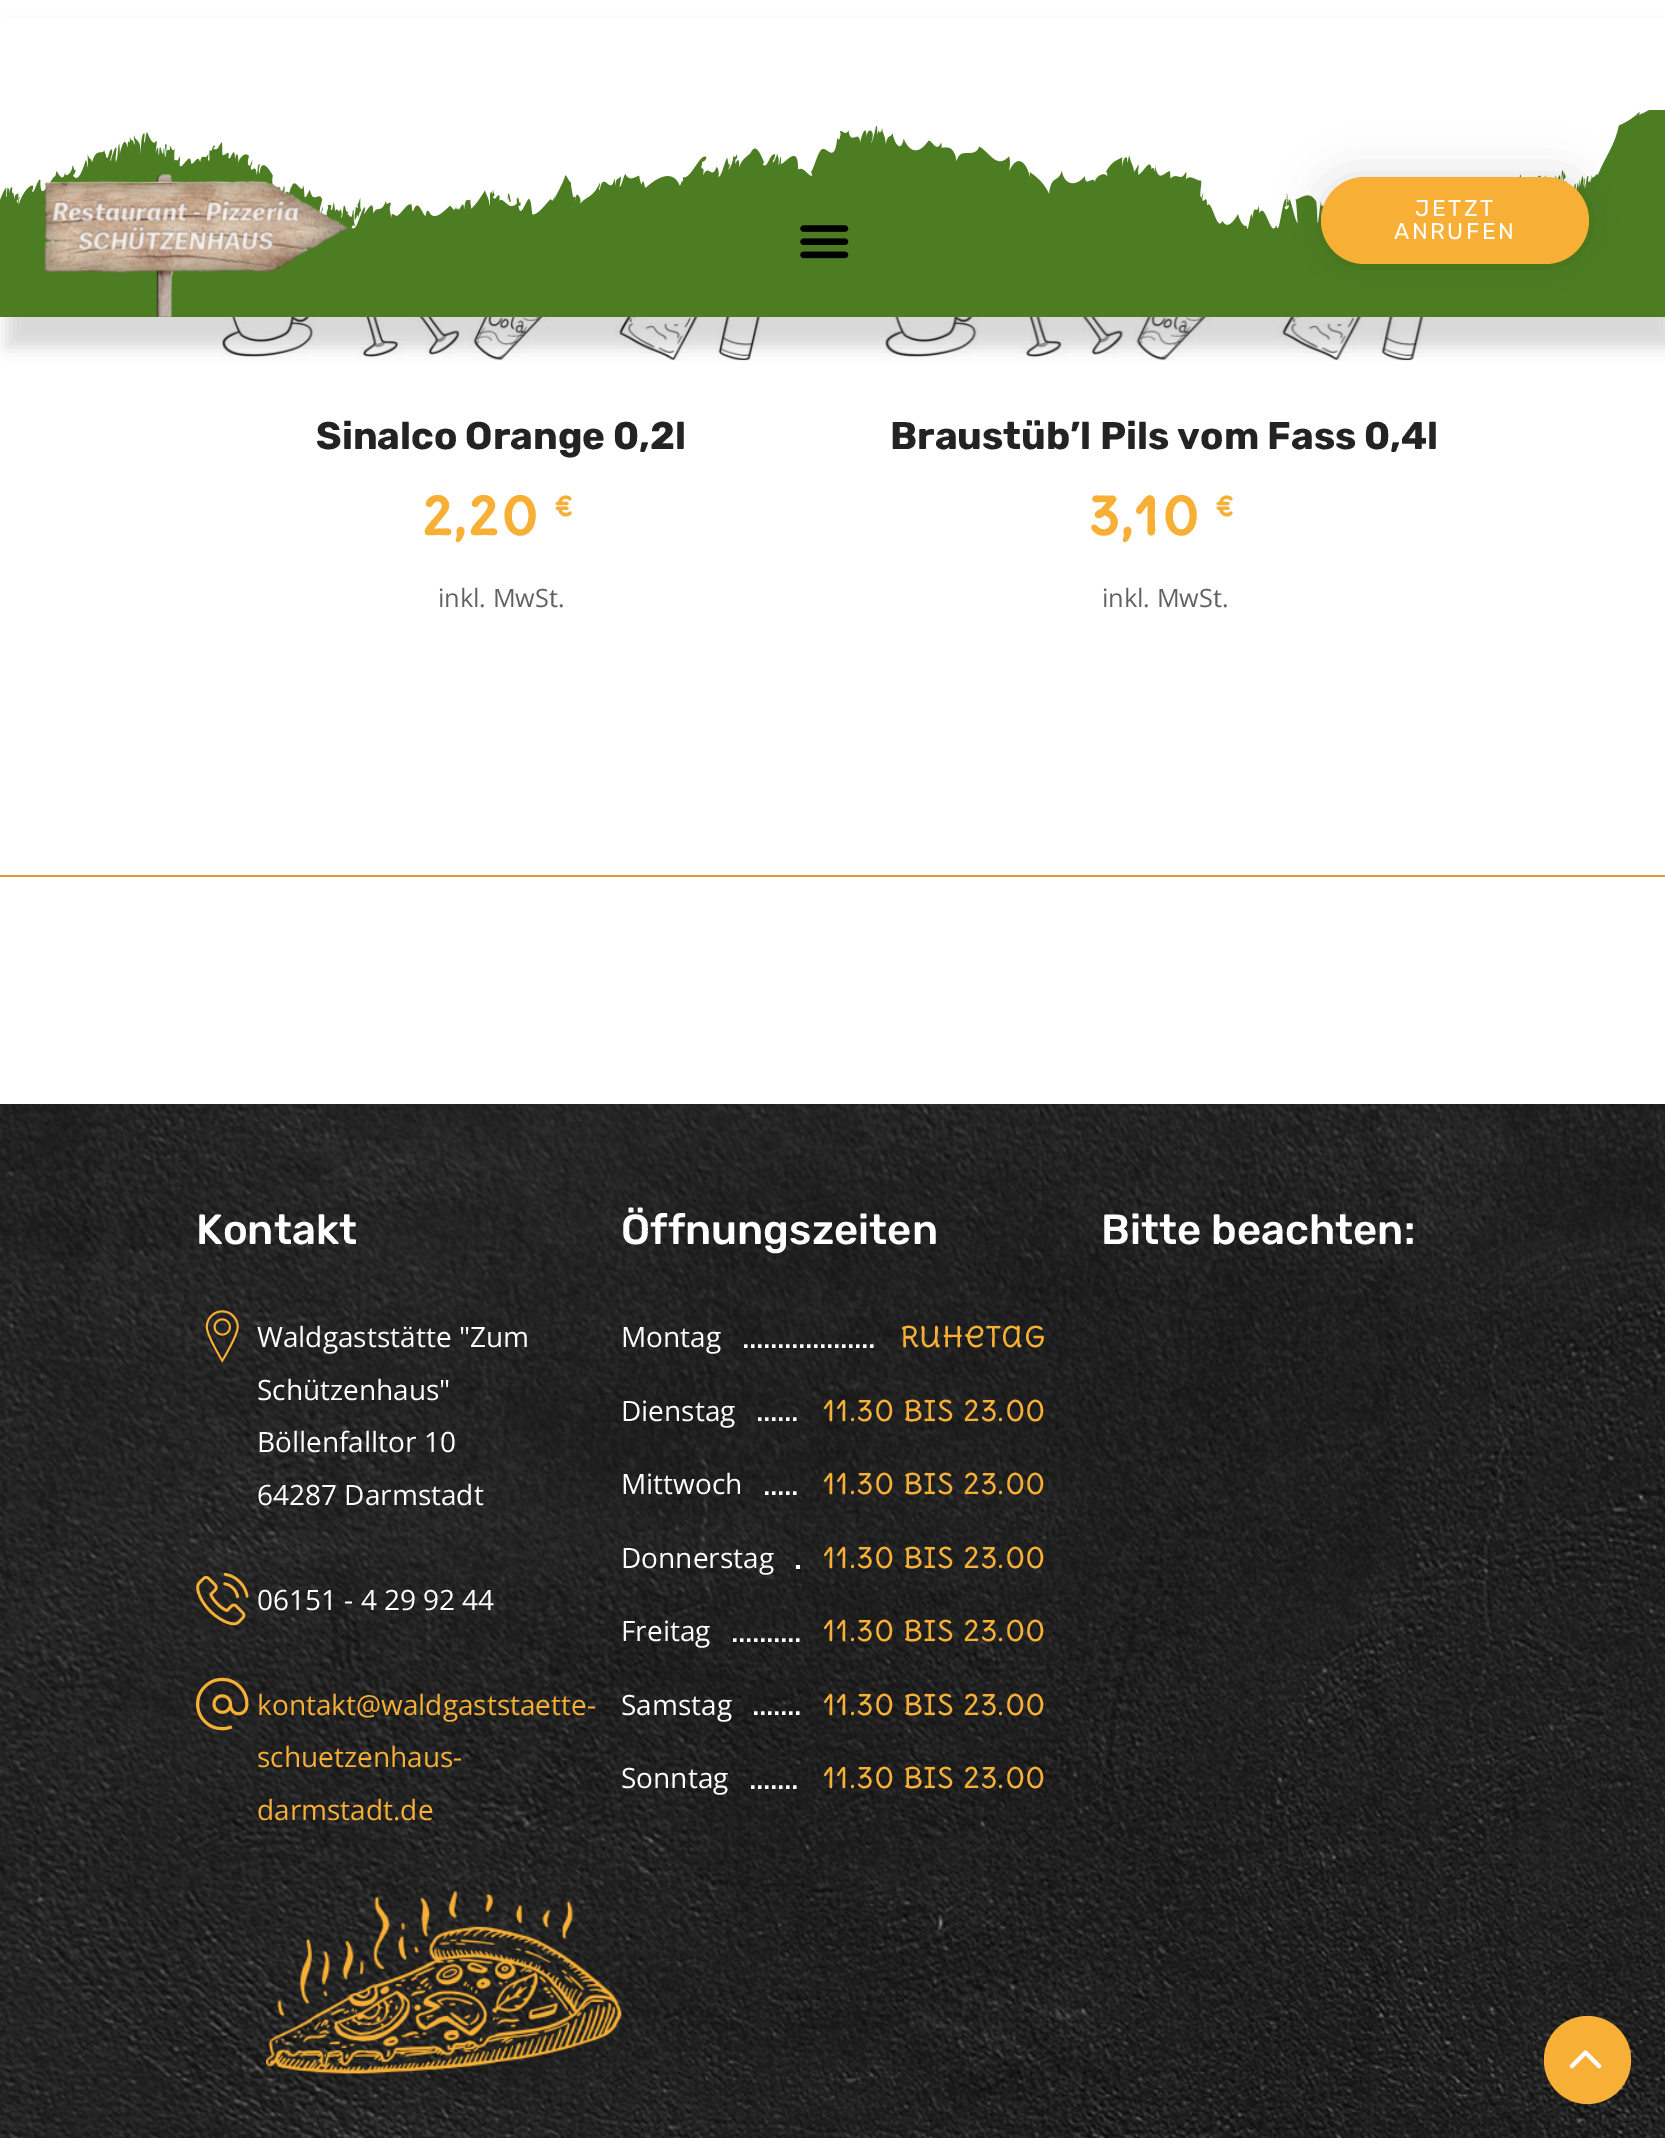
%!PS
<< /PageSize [1665 2138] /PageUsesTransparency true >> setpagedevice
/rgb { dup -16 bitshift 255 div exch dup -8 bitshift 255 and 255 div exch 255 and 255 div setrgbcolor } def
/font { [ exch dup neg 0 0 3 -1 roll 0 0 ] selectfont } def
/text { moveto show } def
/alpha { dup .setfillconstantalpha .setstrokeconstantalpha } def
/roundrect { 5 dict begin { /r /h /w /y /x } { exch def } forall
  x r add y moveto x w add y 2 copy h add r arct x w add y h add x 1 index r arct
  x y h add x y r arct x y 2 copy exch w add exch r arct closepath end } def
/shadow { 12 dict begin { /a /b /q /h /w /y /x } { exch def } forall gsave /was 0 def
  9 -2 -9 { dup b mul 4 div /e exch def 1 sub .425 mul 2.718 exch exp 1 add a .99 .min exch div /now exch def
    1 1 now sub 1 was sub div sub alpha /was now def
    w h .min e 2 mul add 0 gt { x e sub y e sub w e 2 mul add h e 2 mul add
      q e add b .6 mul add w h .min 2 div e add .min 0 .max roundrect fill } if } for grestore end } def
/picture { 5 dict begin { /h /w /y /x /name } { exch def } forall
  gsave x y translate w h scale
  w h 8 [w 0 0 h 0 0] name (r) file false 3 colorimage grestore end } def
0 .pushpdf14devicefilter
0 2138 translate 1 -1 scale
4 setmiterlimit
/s1 { /Rubik-Bold 38.5 font 16#232323 rgb } def
/s2 { /DeliusUnicase-Bold 52.5 font 16#F7B035 rgb } def
/s3 { /DeliusUnicase-Bold 29 font 16#F7B035 rgb } def
/s4 { /OpenSans-Regular 25.25 font 16#616161 rgb } def
/s5 { /Rubik-Medium 42 font 16#FFFFFF rgb } def
/s6 { /OpenSans-Regular 28 font 16#FFFFFF rgb } def
/s7 { /OpenSans-Regular 28 font 16#F7B035 rgb } def
/s8 { /DeliusUnicase-Regular 28 font 16#F7B035 rgb } def
16#FFFFFF rgb
0 0 1665 2138 rectfill
(pic4.raw) 213 317 576 44 picture
(pic5.raw) 876 317 576 44 picture
16#000000 rgb
7 30 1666 317 0 8 0.15 shadow
16#FFFFFF rgb
0 18 1665 211 rectfill
(pic1.raw) 0 110 1665 207 picture
(pic2.raw) 44 173 304 144 picture
(pic3.raw) 800 225 49 34 picture
16#000000 rgb
1321 177 268 87 43.5 23.5 0.12 shadow
16#F7B035 rgb
1321 177 268 87 43.5 roundrect fill
/Rubik-Regular 22.75 font
16#FFFFFF rgb
1415 216 moveto 2.5 0 (JETZT) ashow
1394 239 moveto 2.5 0 (ANRUFEN) ashow
s1
(Sinalco Orange 0,2l) 316 449 text
s2
(2,20) 422 535 text
s3
(€) 554 516 text
s4
(inkl. MwSt.) 438 607 text
s1
(Braustüb’l Pils vom Fass 0,4l) 890 449 text
s2
(3,10) 1088 535 text
s3
(€) 1215 516 text
s4
(inkl. MwSt.) 1102 607 text
16#DD9933 rgb
0 875 1665 2 rectfill
(pic6.raw) 0 1104 1665 1034 picture
s5
(Kontakt) 196 1244 text
(pic7.raw) 205 1310 34 53 picture
s6
(Waldgaststätte "Zum) 257 1347 text
(Schützenhaus") 257 1400 text
(Böllenfalltor 10) 257 1452 text
(64287 Darmstadt) 257 1505 text
(pic8.raw) 196 1572 53 54 picture
(06151 - 4 29 92 44) 257 1610 text
(pic9.raw) 196 1677 53 54 picture
s7
(kontakt@waldgaststaette-) 257 1715 text
(schuetzenhaus-) 257 1767 text
(darmstadt.de) 257 1820 text
(pic10.raw) 266 1891 356 183 picture
s5
(Öffnungszeiten) 621 1244 text
s6
(Montag) 621 1347 text
3.5 setlinewidth
[3.5 3.5] 0 setdash
744 1346 moveto 877 1346 lineto stroke
s8
(Ruhetag) 900 1347 text
s6
(Dienstag) 621 1421 text
758 1419 moveto 800 1419 lineto stroke
s8
(11.30 bis 23.00) 823 1421 text
s6
(Mittwoch) 621 1494 text
765 1493 moveto 800 1493 lineto stroke
s8
(11.30 bis 23.00) 823 1494 text
s6
(Donnerstag) 621 1568 text
796 1565 4 4 rectfill
s8
(11.30 bis 23.00) 823 1568 text
s6
(Freitag) 621 1641 text
733 1640 moveto 800 1640 lineto stroke
s8
(11.30 bis 23.00) 823 1641 text
s6
(Samstag) 621 1715 text
754 1713 moveto 800 1713 lineto stroke
s8
(11.30 bis 23.00) 823 1715 text
s6
(Sonntag) 621 1788 text
751 1787 moveto 800 1787 lineto stroke
s8
(11.30 bis 23.00) 823 1788 text
s5
(Bitte beachten:) 1101 1244 text
16#F7B035 rgb
1544 2016 87 88 43.5 roundrect fill
(pic11.raw) 1569 2050 33 19 picture
.poppdf14devicefilter showpage
